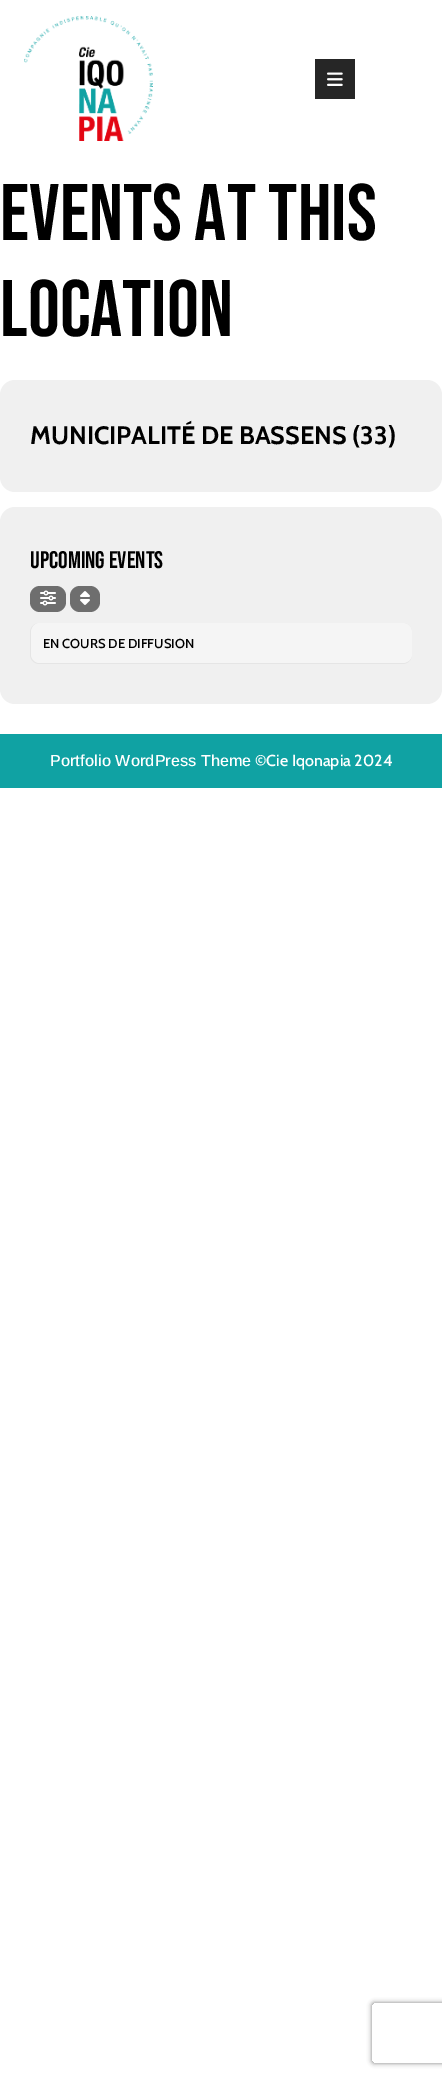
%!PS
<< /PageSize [442 2077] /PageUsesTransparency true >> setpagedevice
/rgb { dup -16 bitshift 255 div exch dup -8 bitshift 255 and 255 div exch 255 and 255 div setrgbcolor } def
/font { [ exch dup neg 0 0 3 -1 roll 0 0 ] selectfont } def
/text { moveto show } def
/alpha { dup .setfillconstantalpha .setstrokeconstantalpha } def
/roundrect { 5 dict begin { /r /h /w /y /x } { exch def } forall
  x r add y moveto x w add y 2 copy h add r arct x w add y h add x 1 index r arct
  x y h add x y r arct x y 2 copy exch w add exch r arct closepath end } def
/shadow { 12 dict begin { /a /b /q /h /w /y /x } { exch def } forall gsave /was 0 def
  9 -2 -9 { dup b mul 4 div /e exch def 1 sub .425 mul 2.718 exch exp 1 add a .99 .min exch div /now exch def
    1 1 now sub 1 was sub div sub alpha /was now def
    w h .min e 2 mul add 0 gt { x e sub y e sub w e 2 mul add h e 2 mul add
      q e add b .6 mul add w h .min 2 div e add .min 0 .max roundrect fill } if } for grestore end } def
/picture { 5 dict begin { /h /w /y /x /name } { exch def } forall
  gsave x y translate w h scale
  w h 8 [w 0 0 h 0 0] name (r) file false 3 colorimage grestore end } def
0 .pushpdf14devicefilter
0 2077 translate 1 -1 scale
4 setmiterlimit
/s1 { /BebasNeue-Regular 80 font 16#000000 rgb } def
/s2 { /Cabin-Bold 25.2 font 16#000000 rgb } def
/s3 { /BebasNeue-Regular 24 font 16#000000 rgb } def
/s4 { /Cabin-Medium 13 font 16#000000 rgb } def
/s5 { /Arimo-Medium 16 font 16#FFFFFF rgb } def
/s6 { /Cabin-Medium 16 font 16#FFFFFF rgb } def
16#FFFFFF rgb
0 0 442 2077 rectfill
(pic1.raw) 24 16 129 125 picture
16#262626 rgb
315 59 40 40 rectfill
(pic2.raw) 327 72 16 14 picture
s1
(EVENTS AT THIS) 0 240 text
(LOCATION) 0 336 text
16#F0F0F0 rgb
0 380 442 112 15 roundrect fill
s2
(MUNICIPALITÉ DE BASSENS \(33\)) 30 444 text
16#F0F0F0 rgb
0 507 442 197 15 roundrect fill
s3
(UPCOMING EVENTS) 30 568 text
16#6E6E6E rgb
30 586 36 26 10 roundrect fill
(pic3.raw) 40 590 16 16 picture
70 586 30 26 10 roundrect fill
(pic4.raw) 80 591 10 14 picture
16#E5E5E5 rgb
40 623 moveto 402 623 lineto 408 623 412 627 412 633 curveto 412 654 lineto 412 660 408 664 402 664 curveto 40 664 lineto 34 664 30 660 30 654 curveto 30 633 lineto 30 627 34 623 40 623 curveto closepath 40 623 moveto 402 623 lineto 408 623 412 627 412 633 curveto 412 654 lineto 412 659 408 663 402 663 curveto 40 663 lineto 35 663 31 659 31 654 curveto 31 633 lineto 31 627 35 623 40 623 curveto closepath eofill
16#F5F5F5 rgb
40 623 moveto 35 623 31 627 31 633 curveto 31 654 lineto 31 659 35 663 40 663 curveto 402 663 lineto 408 663 412 659 412 654 curveto 412 633 lineto 412 627 408 623 402 623 curveto closepath fill
s4
(EN COURS DE DIFFUSION) 43 648 text
16#10A2A3 rgb
0 734 442 54 rectfill
s5
(Portfolio WordPress Theme) 50 766 text
s6
(©Cie Iqonapia 2024) 255 766 text
gsave
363 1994 moveto 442 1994 lineto 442 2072 lineto 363 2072 lineto closepath 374 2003 moveto 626 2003 lineto 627 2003 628 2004 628 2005 curveto 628 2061 lineto 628 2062 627 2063 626 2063 curveto 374 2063 lineto 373 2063 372 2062 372 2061 curveto 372 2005 lineto 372 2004 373 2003 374 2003 curveto closepath eoclip newpath
16#808080 rgb
372 2003 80 60 2 2.5 1 shadow
grestore
.poppdf14devicefilter showpage
